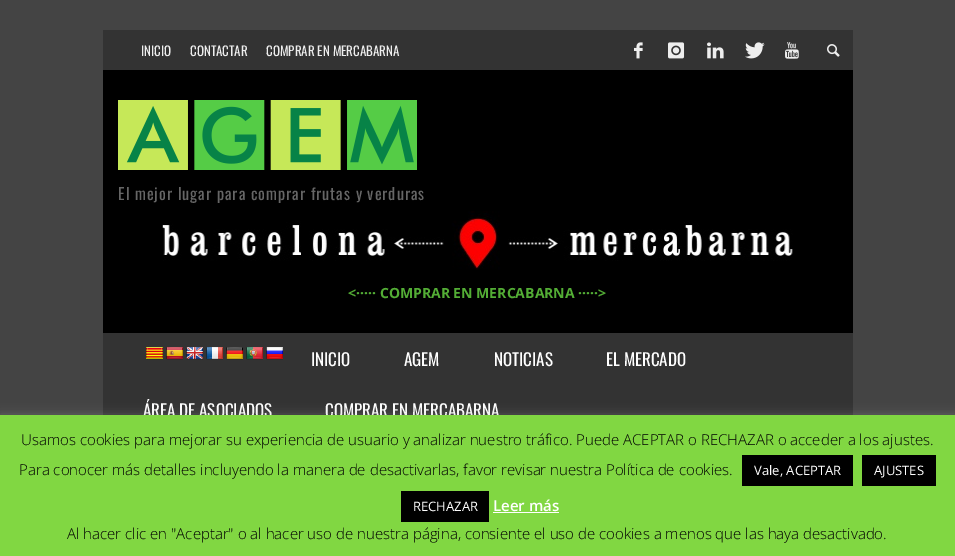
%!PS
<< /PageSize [955 556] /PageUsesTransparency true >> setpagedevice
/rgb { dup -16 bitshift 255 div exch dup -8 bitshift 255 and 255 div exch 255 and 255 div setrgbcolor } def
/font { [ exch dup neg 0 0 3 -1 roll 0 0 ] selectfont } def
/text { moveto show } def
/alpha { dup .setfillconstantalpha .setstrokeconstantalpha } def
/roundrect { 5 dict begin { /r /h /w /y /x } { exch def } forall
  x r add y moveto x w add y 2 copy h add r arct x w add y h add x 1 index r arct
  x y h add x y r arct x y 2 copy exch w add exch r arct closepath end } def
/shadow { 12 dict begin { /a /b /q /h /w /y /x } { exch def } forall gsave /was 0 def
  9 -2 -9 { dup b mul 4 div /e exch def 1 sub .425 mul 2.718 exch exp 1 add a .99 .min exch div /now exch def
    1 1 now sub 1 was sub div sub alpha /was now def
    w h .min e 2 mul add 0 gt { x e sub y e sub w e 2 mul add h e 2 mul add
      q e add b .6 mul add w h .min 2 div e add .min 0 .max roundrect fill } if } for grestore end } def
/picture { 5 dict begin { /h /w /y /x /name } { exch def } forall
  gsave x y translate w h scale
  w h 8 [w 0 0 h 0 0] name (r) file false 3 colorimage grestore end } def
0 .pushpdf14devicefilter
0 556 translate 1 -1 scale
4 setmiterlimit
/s1 { /Oswald-Regular 13 font 16#EEEEEE rgb } def
/s2 { /OpenSans-Bold 14 font 16#53AD35 rgb } def
/s3 { /Oswald-Regular 17 font 16#FFFFFF rgb } def
/s4 { /OpenSans-Light 15 font 16#000000 rgb } def
/s5 { /OpenSans-Regular 13 font 16#FFFFFF rgb } def
/s6 { /OpenSans-SemiBold 15 font 16#FFFFFF rgb } def
16#444444 rgb
0 0 955 556 rectfill
16#333333 rgb
103 30 750 40 rectfill
s1
(INICIO) 141 56 text
(CONTACTAR) 190 56 text
(COMPRAR EN MERCABARNA) 266 56 text
(pic1.raw) 634 42 9 17 picture
(pic2.raw) 668 42 17 17 picture
(pic3.raw) 707 42 17 17 picture
(pic4.raw) 745 42 20 17 picture
(pic5.raw) 785 42 14 17 picture
(pic6.raw) 827 44 13 13 picture
16#000000 rgb
103 70 750 263 rectfill
(pic7.raw) 118 100 299 70 picture
/Oswald-Regular 16 font
16#666666 rgb
118 200 moveto 1 0 (El mejor lugar para comprar frutas y verduras) ashow
(pic8.raw) 162 211 631 59 picture
s2
(<····· COMPRAR EN MERCABARNA ·····>) 348 298 text
16#333333 rgb
103 333 750 82 rectfill
(pic9.raw) 146 347 17 13 picture
(pic10.raw) 166 347 17 13 picture
(pic11.raw) 186 347 17 13 picture
(pic12.raw) 206 347 17 13 picture
(pic13.raw) 226 347 17 13 picture
(pic14.raw) 246 347 17 13 picture
(pic15.raw) 266 347 17 13 picture
s3
(INICIO) 311 366 text
(AGEM) 404 366 text
(NOTICIAS) 494 366 text
(EL MERCADO) 606 366 text
(ÁREA DE ASOCIADOS) 143 417 text
(COMPRAR EN MERCABARNA) 325 417 text
16#ACABAB rgb
0 414 955 141 0 5 0.3 shadow
16#81D742 rgb
0 415 955 141 rectfill
s4
(Usamos cookies para mejorar su experiencia de usuario y analizar nuestro tráfico. Puede ACEPTAR o RECHAZAR o acceder a los ajustes.) 21 445 text
(Para conocer más detalles incluyendo la manera de desactivarlas, favor revisar nuestra Política de cookies.) 19 475 text
742 455 111 31 rectfill
s5
(Vale, ACEPTAR) 754 475 text
16#000000 rgb
862 455 74 31 rectfill
s5
(AJUSTES) 874 475 text
16#000000 rgb
401 491 88 31 rectfill
s5
(RECHAZAR) 413 511 text
s6
(Leer más) 493 511 text
493 512 66 1 rectfill
s4
(Al hacer clic en "Aceptar" o al hacer uso de nuestra página, consiente el uso de cookies a menos que las haya desactivado.) 67 539 text
.poppdf14devicefilter showpage
